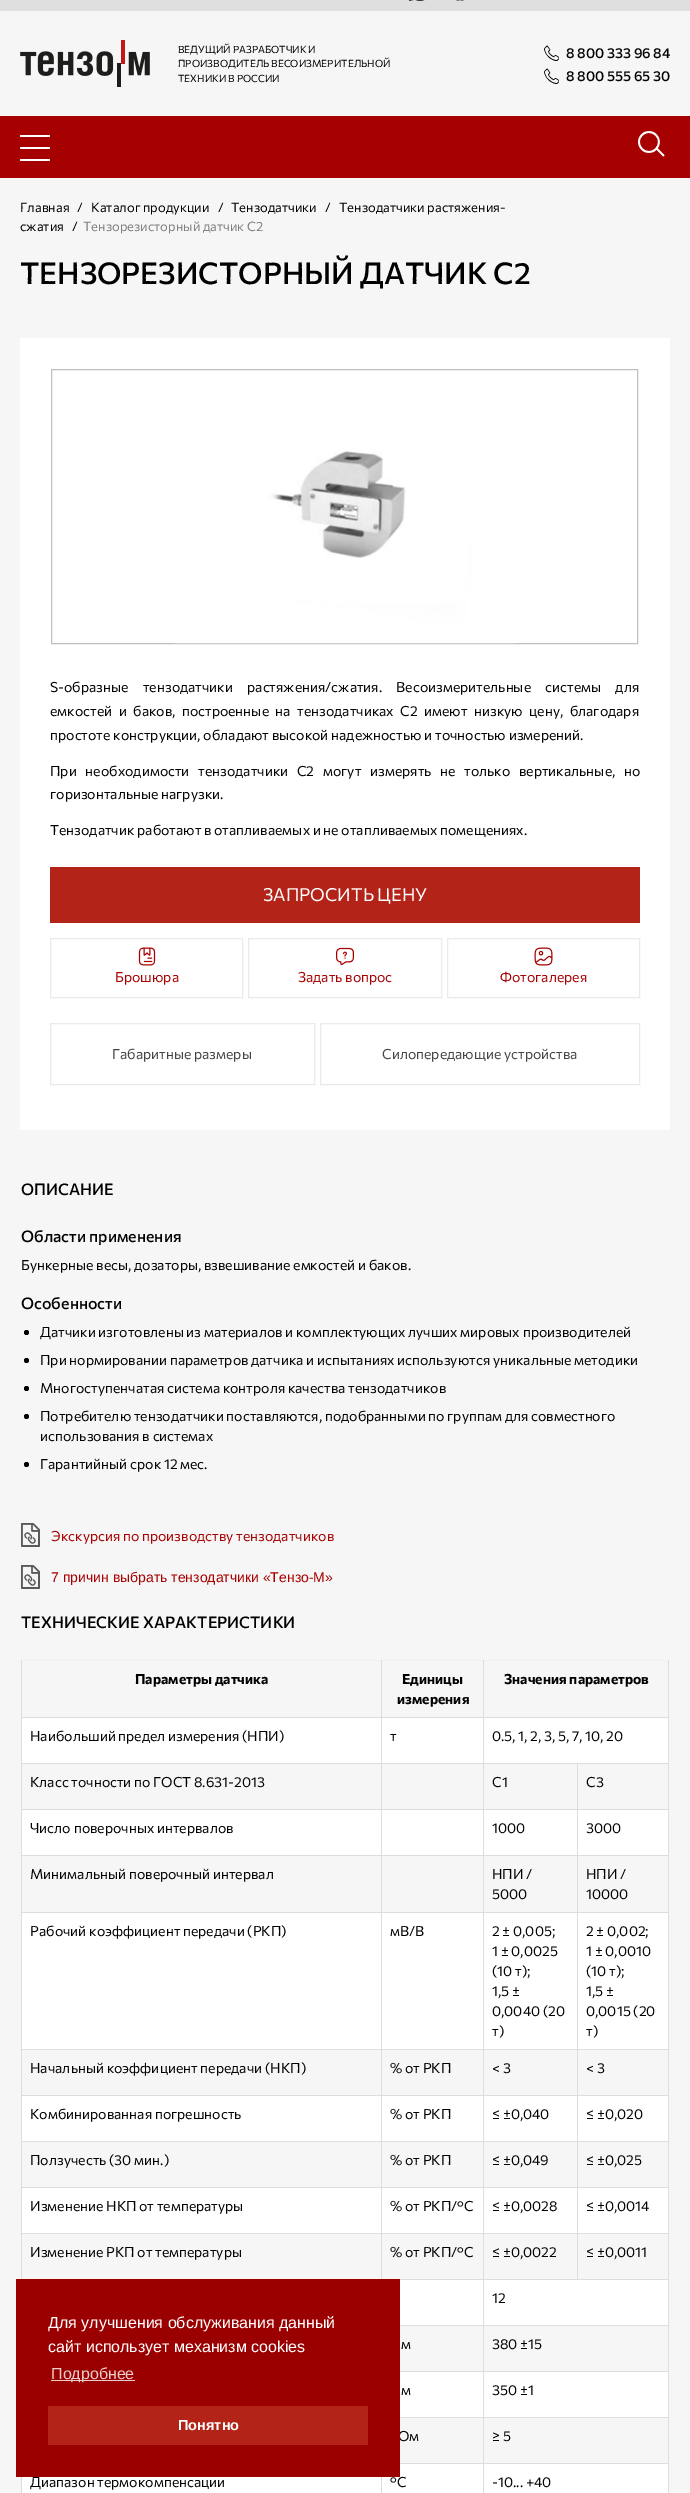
%!PS
<< /PageSize [690 2493] >> setpagedevice
/rgb { dup -16 bitshift 255 div exch dup -8 bitshift 255 and 255 div exch 255 and 255 div setrgbcolor } def
/font { [ exch dup neg 0 0 3 -1 roll 0 0 ] selectfont } def
/text { moveto show } def
/circle { newpath 0 360 arc closepath } def
/roundrect { 5 dict begin { /r /h /w /y /x } { exch def } forall
  x r add y moveto x w add y 2 copy h add r arct x w add y h add x 1 index r arct
  x y h add x y r arct x y 2 copy exch w add exch r arct closepath end } def
/picture { 5 dict begin { /h /w /y /x /name } { exch def } forall
  gsave x y translate w h scale
  w h 8 [w 0 0 h 0 0] name (r) file false 3 colorimage grestore end } def
0 2493 translate 1 -1 scale
4 setmiterlimit
/s1 { /Commissioner-Regular 10 font 16#000000 rgb } def
/s2 { /Commissioner-Medium 14 font 16#000000 rgb } def
/s3 { /Commissioner-Regular 13 font 16#000000 rgb } def
/s4 { /Commissioner-Regular 13 font 16#808080 rgb } def
/s5 { /Commissioner-Medium 30 font 16#000000 rgb } def
/s6 { /Commissioner-Regular 14 font 16#000000 rgb } def
/s7 { /Commissioner-Regular 18 font 16#FFFFFF rgb } def
/s8 { /Commissioner-Regular 14 font 16#A70000 rgb } def
/s9 { /Commissioner-Regular 14 font 16#444444 rgb } def
/s10 { /Commissioner-Medium 16 font 16#000000 rgb } def
/s11 { /LiberationSans-Regular 14 font 16#A70000 rgb } def
/s12 { /Commissioner-Bold 14 font 16#000000 rgb } def
/s13 { /LiberationSans-Regular 16 font 16#FFFFFF rgb } def
/s14 { /LiberationSans-Regular 16 font 16#EBCCCC rgb } def
/s15 { /LiberationSans-Bold 14.5 font 16#FFFFFF rgb } def
16#F6F6F6 rgb
0 0 690 2493 rectfill
16#DFDFDF rgb
0 0 690 11 rectfill
16#DADADA rgb
385 0 1 1 rectfill
(pic1.raw) 409 0 16 1 picture
(pic2.raw) 455 0 10 1 picture
(pic3.raw) 20 40 130 47 picture
s1
(ВЕДУЩИЙ РАЗРАБОТЧИК И) 178 53 text
(ПРОИЗВОДИТЕЛЬ ВЕСОИЗМЕРИТЕЛЬНОЙ) 178 67 text
(ТЕХНИКИ В РОССИИ) 178 82 text
(pic4.raw) 544 45 15 16 picture
s2
(8 800 333 96 84) 566 58 text
(pic4.raw) 544 68 15 16 picture
(8 800 555 65 30) 566 81 text
16#A70000 rgb
0 116 690 62 rectfill
(pic5.raw) 638 131 27 26 picture
16#FFFFFF rgb
20 135 30 2 1 roundrect fill
20 147 30 2 1 roundrect fill
20 159 30 2 1 roundrect fill
s3
(Главная) 20 212 text
(/) 77 212 text
(Каталог продукции) 91 212 text
(/) 218 212 text
(Тензодатчики) 231 212 text
(/) 325 212 text
(Тензодатчики растяжения-) 339 212 text
(сжатия) 20 231 text
(/) 72 231 text
s4
(Тензорезисторный датчик С2) 83 231 text
s5
(ТЕНЗОРЕЗИСТОРНЫЙ ДАТЧИК С2) 20 284 text
16#FFFFFF rgb
20 338 650 792 rectfill
16#C0C0C0 rgb
51.5 369.5 586 274 rectstroke
(pic6.raw) 174 451 341 193 picture
/Commissioner-Regular 14 font
16#000000 rgb
50 692 moveto 11.5 0 32 (S-образные тензодатчики растяжения/сжатия. Весоизмерительные системы для) widthshow
50 716 moveto 3.75 0 32 (емкостей и баков, построенные на тензодатчиках С2 имеют низкую цену, благодаря) widthshow
(простоте конструкции, обладают высокой надежностью и точностью измерений.) 50 740 text
50 776 moveto 6 0 32 (При необходимости тензодатчики С2 могут измерять не только вертикальные, но) widthshow
(горизонтальные нагрузки.) 50 799 text
(Тензодатчик работают в отапливаемых и не отапливаемых помещениях.) 50 835 text
16#B32317 rgb
50 867 590 56 rectfill
s7
(ЗАПРОСИТЬ ЦЕНУ) 263 901 text
16#EAEAEA rgb
50.5 938.5 192 59 rectstroke
(pic7.raw) 138 947 18 19 picture
s8
(Брошюра) 115 982 text
16#EAEAEA rgb
248.5 938.5 193 59 rectstroke
(pic8.raw) 336 947 18 19 picture
s8
(Задать вопрос) 298 982 text
16#EAEAEA rgb
447.5 938.5 192 59 rectstroke
(pic9.raw) 534 947 19 19 picture
s8
(Фотогалерея) 500 982 text
16#EAEAEA rgb
50.5 1023.5 264 61 rectstroke
s9
(Габаритные размеры) 112 1059 text
16#EAEAEA rgb
320.5 1023.5 319 61 rectstroke
s9
(Силопередающие устройства) 382 1059 text
s10
(ОПИСАНИЕ) 21 1195 text
(Области применения) 21 1242 text
s6
(Бункерные весы, дозаторы, взвешивание емкостей и баков.) 21 1270 text
s10
(Особенности) 21 1309 text
26.5 1332.5 2.5 circle fill
s6
(Датчики изготовлены из материалов и комплектующих лучших мировых производителей) 40 1337 text
26.5 1360.5 2.5 circle fill
(При нормировании параметров датчика и испытаниях используются уникальные методики) 40 1365 text
26.5 1388.5 2.5 circle fill
(Многоступенчатая система контроля качества тензодатчиков) 40 1393 text
26.5 1416.5 2.5 circle fill
(Потребителю тензодатчики поставляются, подобранными по группам для совместного) 40 1421 text
(использования в системах) 40 1441 text
26.5 1464.5 2.5 circle fill
(Гарантийный срок 12 мес.) 40 1469 text
(pic10.raw) 21 1523 19 24 picture
s8
(Экскурсия по производству тензодатчиков) 51 1541 text
(pic10.raw) 21 1565 19 24 picture
s11
(7 причин выбрать тензодатчики «Тензо-М») 51 1582 text
s10
(ТЕХНИЧЕСКИЕ ХАРАКТЕРИСТИКИ) 21 1628 text
16#F1F1F1 rgb
21 1660 648 1 rectfill
16#DDDDDD rgb
668 1717 1 776 rectfill
668 1660 1 58 rectfill
16#FFFFFF rgb
22 1718 646 45 rectfill
22 1810 646 45 rectfill
22 1913 646 136 rectfill
22 2096 646 45 rectfill
22 2188 646 45 rectfill
16#DDDDDD rgb
577 2279 92 1 rectfill
577 2233 1 47 rectfill
577 2233 92 1 rectfill
577 2187 1 47 rectfill
577 2187 92 1 rectfill
577 2141 1 47 rectfill
577 2141 92 1 rectfill
577 2095 1 47 rectfill
577 2095 92 1 rectfill
577 2049 1 47 rectfill
577 2049 92 1 rectfill
577 1912 1 138 rectfill
577 1912 92 1 rectfill
577 1855 1 58 rectfill
577 1855 92 1 rectfill
577 1809 1 47 rectfill
577 1809 92 1 rectfill
577 1763 1 47 rectfill
16#FFFFFF rgb
400 2280 268 45 rectfill
400 2372 268 45 rectfill
22 2464 646 29 rectfill
16#DDDDDD rgb
483 2463 1 30 rectfill
483 2463 186 1 rectfill
483 2417 1 47 rectfill
483 2417 186 1 rectfill
483 2371 1 47 rectfill
483 2371 186 1 rectfill
483 2325 1 47 rectfill
483 2325 186 1 rectfill
483 2279 1 47 rectfill
483 2279 95 1 rectfill
483 2233 1 47 rectfill
483 2233 95 1 rectfill
483 2187 1 47 rectfill
483 2187 95 1 rectfill
483 2141 1 47 rectfill
483 2141 95 1 rectfill
483 2095 1 47 rectfill
483 2095 95 1 rectfill
483 2049 1 47 rectfill
483 2049 95 1 rectfill
483 1912 1 138 rectfill
483 1912 95 1 rectfill
483 1855 1 58 rectfill
483 1855 95 1 rectfill
483 1809 1 47 rectfill
483 1809 95 1 rectfill
483 1763 1 47 rectfill
483 1763 186 1 rectfill
483 1717 1 47 rectfill
483 1717 186 1 rectfill
483 1660 1 58 rectfill
381 2233 1 47 rectfill
381 2233 103 1 rectfill
381 2187 1 47 rectfill
381 2187 103 1 rectfill
381 2141 1 47 rectfill
381 2141 103 1 rectfill
381 2095 1 47 rectfill
381 2095 103 1 rectfill
381 2049 1 47 rectfill
381 2049 103 1 rectfill
381 1912 1 138 rectfill
381 1912 103 1 rectfill
381 1855 1 58 rectfill
381 1855 103 1 rectfill
381 1809 1 47 rectfill
381 1809 103 1 rectfill
381 1763 1 47 rectfill
381 1763 103 1 rectfill
381 1717 1 47 rectfill
381 1717 103 1 rectfill
381 1660 1 58 rectfill
21 2233 1 47 rectfill
21 2233 361 1 rectfill
21 2187 1 47 rectfill
21 2187 361 1 rectfill
21 2141 1 47 rectfill
21 2141 361 1 rectfill
21 2095 1 47 rectfill
21 2095 361 1 rectfill
21 2049 1 47 rectfill
21 2049 361 1 rectfill
21 1912 1 138 rectfill
21 1912 361 1 rectfill
21 1855 1 58 rectfill
21 1855 361 1 rectfill
21 1809 1 47 rectfill
21 1809 361 1 rectfill
21 1763 1 47 rectfill
21 1763 361 1 rectfill
21 1717 1 47 rectfill
21 1717 361 1 rectfill
21 1660 1 58 rectfill
s12
(Параметры датчика) 135 1684 text
(Единицы) 402 1684 text
(измерения) 397 1704 text
(Значения параметров) 504 1684 text
s6
(Наибольший предел измерения \(НПИ\)) 30 1741 text
(т) 390 1741 text
(0.5, 1, 2, 3, 5, 7, 10, 20) 492 1741 text
(Класс точности по ГОСТ 8.631-2013) 30 1787 text
(С1) 492 1787 text
(C3) 586 1787 text
(Число поверочных интервалов) 30 1833 text
(1000) 492 1833 text
(3000) 586 1833 text
(Минимальный поверочный интервал) 30 1879 text
(НПИ /) 492 1879 text
(5000) 492 1899 text
(НПИ /) 586 1879 text
(10000) 586 1899 text
(Рабочий коэффициент передачи \(РКП\)) 30 1936 text
(мВ/В) 390 1936 text
(2 ± 0,005;) 492 1936 text
(1 ± 0,0025) 492 1956 text
(\(10 т\);) 492 1976 text
(1,5 ±) 492 1996 text
(0,0040 \(20) 492 2016 text
(т\)) 492 2036 text
(2 ± 0,002;) 586 1936 text
(1 ± 0,0010) 586 1956 text
(\(10 т\);) 586 1976 text
(1,5 ±) 586 1996 text
(0,0015 \(20) 586 2016 text
(т\)) 586 2036 text
(Начальный коэффициент передачи \(НКП\)) 30 2073 text
(% от РКП) 390 2073 text
(< 3) 492 2073 text
(< 3) 586 2073 text
(Комбинированная погрешность) 30 2119 text
(% от РКП) 390 2119 text
(≤ ±0,040) 492 2119 text
(≤ ±0,020) 586 2119 text
(Ползучесть \(30 мин.\)) 30 2165 text
(% от РКП) 390 2165 text
(≤ ±0,049) 492 2165 text
(≤ ±0,025) 586 2165 text
(Изменение НКП от температуры) 30 2211 text
(% от РКП/°С) 390 2211 text
(≤ ±0,0028) 492 2211 text
(≤ ±0,0014) 586 2211 text
(Изменение РКП от температуры) 30 2257 text
16#DDDDDD rgb
400 2279 84 1 rectfill
s6
(% от РКП/°С) 390 2257 text
(≤ ±0,0022) 492 2257 text
(≤ ±0,0011) 586 2257 text
16#DDDDDD rgb
400 2325 84 1 rectfill
s6
(12) 492 2303 text
16#DDDDDD rgb
400 2371 84 1 rectfill
s6
(м) 401 2349 text
(380 ±15) 492 2349 text
16#DDDDDD rgb
400 2417 84 1 rectfill
s6
(м) 401 2395 text
(350 ±1) 492 2395 text
16#DDDDDD rgb
400 2463 84 1 rectfill
s6
(Ом) 398 2441 text
(≥ 5) 492 2441 text
16#DDDDDD rgb
381 2477 1 16 rectfill
21 2477 1 16 rectfill
s6
(Диапазон термокомпенсации) 30 2487 text
(°С) 390 2487 text
(-10... +40) 492 2487 text
16#9A0000 rgb
16 2279 384 198 rectfill
s13
(Для улучшения обслуживания данный) 48 2328 text
(сайт использует механизм cookies) 48 2352 text
16#EBCCCC rgb
51 2380 84 1 rectfill
(Подробнее) 51 2379 text
16#B32317 rgb
48 2406 320 39 rectfill
s15
(Понятно) 178 2430 text
showpage
